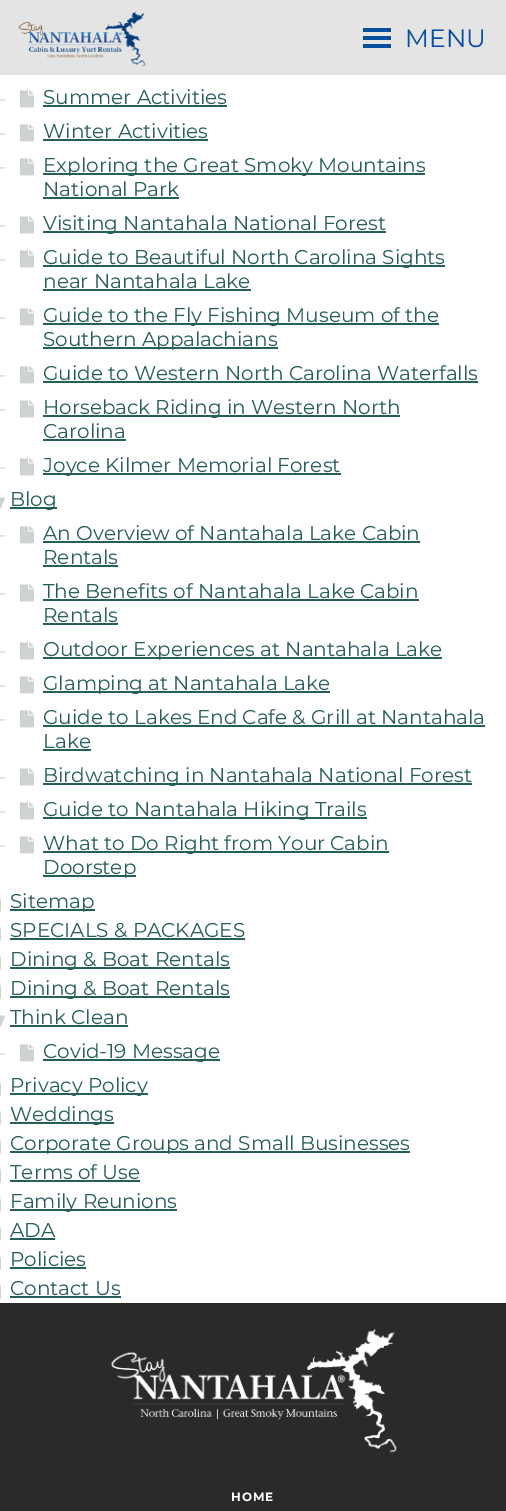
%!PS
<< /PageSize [506 1511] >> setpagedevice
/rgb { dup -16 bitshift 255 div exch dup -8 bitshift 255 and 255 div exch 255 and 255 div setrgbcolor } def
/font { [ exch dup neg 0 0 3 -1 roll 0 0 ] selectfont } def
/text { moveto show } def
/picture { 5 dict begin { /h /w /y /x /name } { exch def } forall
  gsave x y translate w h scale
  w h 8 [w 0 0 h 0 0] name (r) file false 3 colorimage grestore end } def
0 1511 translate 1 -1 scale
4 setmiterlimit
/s1 { /Montserrat-Regular 25 font 16#054EA0 rgb } def
/s2 { /Montserrat-Regular 20 font 16#265E5A rgb } def
16#FFFFFF rgb
0 0 506 1511 rectfill
16#E4E4E4 rgb
0 0 506 75 rectfill
(pic1.raw) 18 11 128 56 picture
16#054EA0 rgb
363 28 28 4 rectfill
363 36 28 4 rectfill
363 44 28 4 rectfill
s1
(MENU) 405 47 text
(pic2.raw) 0 99 5 2 picture
(pic3.raw) 20 90 14 18 picture
s2
(Summer Activities) 43 104 text
43 105 184 2 rectfill
(pic2.raw) 0 133 5 2 picture
(pic3.raw) 20 124 14 18 picture
(Winter Activities) 43 138 text
43 139 165 2 rectfill
(pic2.raw) 0 167 5 2 picture
(pic3.raw) 20 158 14 18 picture
43 173 382 2 rectfill
(Exploring the Great Smoky Mountains) 43 172 text
(National Park) 43 196 text
43 197 136 2 rectfill
(pic2.raw) 0 225 5 2 picture
(pic3.raw) 20 216 14 18 picture
43 231 343 2 rectfill
(Visiting Nantahala National Forest) 43 230 text
(pic2.raw) 0 259 5 2 picture
(pic3.raw) 20 250 14 18 picture
43 265 402 2 rectfill
(Guide to Beautiful North Carolina Sights) 43 264 text
(near Nantahala Lake) 43 288 text
43 289 208 2 rectfill
(pic2.raw) 0 317 5 2 picture
(pic3.raw) 20 308 14 18 picture
43 323 396 2 rectfill
(Guide to the Fly Fishing Museum of the) 43 322 text
43 347 235 2 rectfill
(Southern Appalachians) 43 346 text
(pic2.raw) 0 375 5 2 picture
(pic3.raw) 20 366 14 18 picture
(Guide to Western North Carolina Waterfalls) 43 380 text
43 381 435 2 rectfill
(pic2.raw) 0 409 5 2 picture
(pic3.raw) 20 400 14 18 picture
43 415 357 2 rectfill
(Horseback Riding in Western North) 43 414 text
(Carolina) 43 438 text
43 439 83 2 rectfill
(pic4.raw) 0 467 5 2 picture
(pic3.raw) 20 458 14 18 picture
43 473 298 2 rectfill
(Joyce Kilmer Memorial Forest) 43 472 text
(pic5.raw) 0 497 5 12 picture
10 507 47 2 rectfill
(Blog) 10 506 text
(pic2.raw) 0 535 5 2 picture
(pic3.raw) 20 526 14 18 picture
(An Overview of Nantahala Lake Cabin) 43 540 text
43 541 377 2 rectfill
(Rentals) 43 564 text
43 565 75 2 rectfill
(pic2.raw) 0 593 5 2 picture
(pic3.raw) 20 584 14 18 picture
(The Benefits of Nantahala Lake Cabin) 43 598 text
43 599 376 2 rectfill
(Rentals) 43 622 text
43 623 75 2 rectfill
(pic2.raw) 0 651 5 2 picture
(pic3.raw) 20 642 14 18 picture
43 657 399 2 rectfill
(Outdoor Experiences at Nantahala Lake) 43 656 text
(pic2.raw) 0 685 5 2 picture
(pic3.raw) 20 676 14 18 picture
43 691 287 2 rectfill
(Glamping at Nantahala Lake) 43 690 text
(pic2.raw) 0 719 5 2 picture
(pic3.raw) 20 710 14 18 picture
(Guide to Lakes End Cafe & Grill at Nantahala) 43 724 text
43 725 442 2 rectfill
(Lake) 43 748 text
43 749 48 2 rectfill
(pic2.raw) 0 777 5 2 picture
(pic3.raw) 20 768 14 18 picture
43 783 429 2 rectfill
(Birdwatching in Nantahala National Forest) 43 782 text
(pic2.raw) 0 811 5 2 picture
(pic3.raw) 20 802 14 18 picture
43 817 324 2 rectfill
(Guide to Nantahala Hiking Trails) 43 816 text
(pic4.raw) 0 845 5 2 picture
(pic3.raw) 20 836 14 18 picture
43 851 346 2 rectfill
(What to Do Right from Your Cabin) 43 850 text
43 875 93 2 rectfill
(Doorstep) 43 874 text
(pic6.raw) 0 897 1 15 picture
10 909 85 2 rectfill
(Sitemap) 10 908 text
(pic6.raw) 0 926 1 15 picture
(SPECIALS & PACKAGES) 10 937 text
10 938 235 2 rectfill
(pic6.raw) 0 955 1 15 picture
10 967 220 2 rectfill
(Dining & Boat Rentals) 10 966 text
(pic6.raw) 0 984 1 15 picture
10 996 220 2 rectfill
(Dining & Boat Rentals) 10 995 text
(pic5.raw) 0 1015 5 12 picture
(Think Clean) 10 1024 text
10 1025 118 2 rectfill
(pic4.raw) 0 1053 5 2 picture
(pic3.raw) 20 1044 14 18 picture
43 1059 177 2 rectfill
(Covid-19 Message) 43 1058 text
(pic6.raw) 0 1081 1 15 picture
10 1093 138 2 rectfill
(Privacy Policy) 10 1092 text
(pic6.raw) 0 1110 1 15 picture
10 1122 104 2 rectfill
(Weddings) 10 1121 text
(pic6.raw) 0 1139 1 15 picture
10 1151 400 2 rectfill
(Corporate Groups and Small Businesses) 10 1150 text
(pic6.raw) 0 1168 1 15 picture
(Terms of Use) 10 1179 text
10 1180 130 2 rectfill
(pic6.raw) 0 1197 1 15 picture
10 1209 167 2 rectfill
(Family Reunions) 10 1208 text
(pic6.raw) 0 1226 1 15 picture
(ADA) 10 1237 text
10 1238 45 2 rectfill
(pic6.raw) 0 1255 1 15 picture
(Policies) 10 1266 text
10 1267 76 2 rectfill
(pic6.raw) 0 1284 1 15 picture
(Contact Us) 10 1295 text
10 1296 111 2 rectfill
16#2A2A2A rgb
0 1303 506 208 rectfill
(pic7.raw) 111 1328 286 125 picture
/Montserrat-Bold 12 font
16#FFFFFF rgb
231 1501 moveto 1 0 (HOME) ashow
showpage
